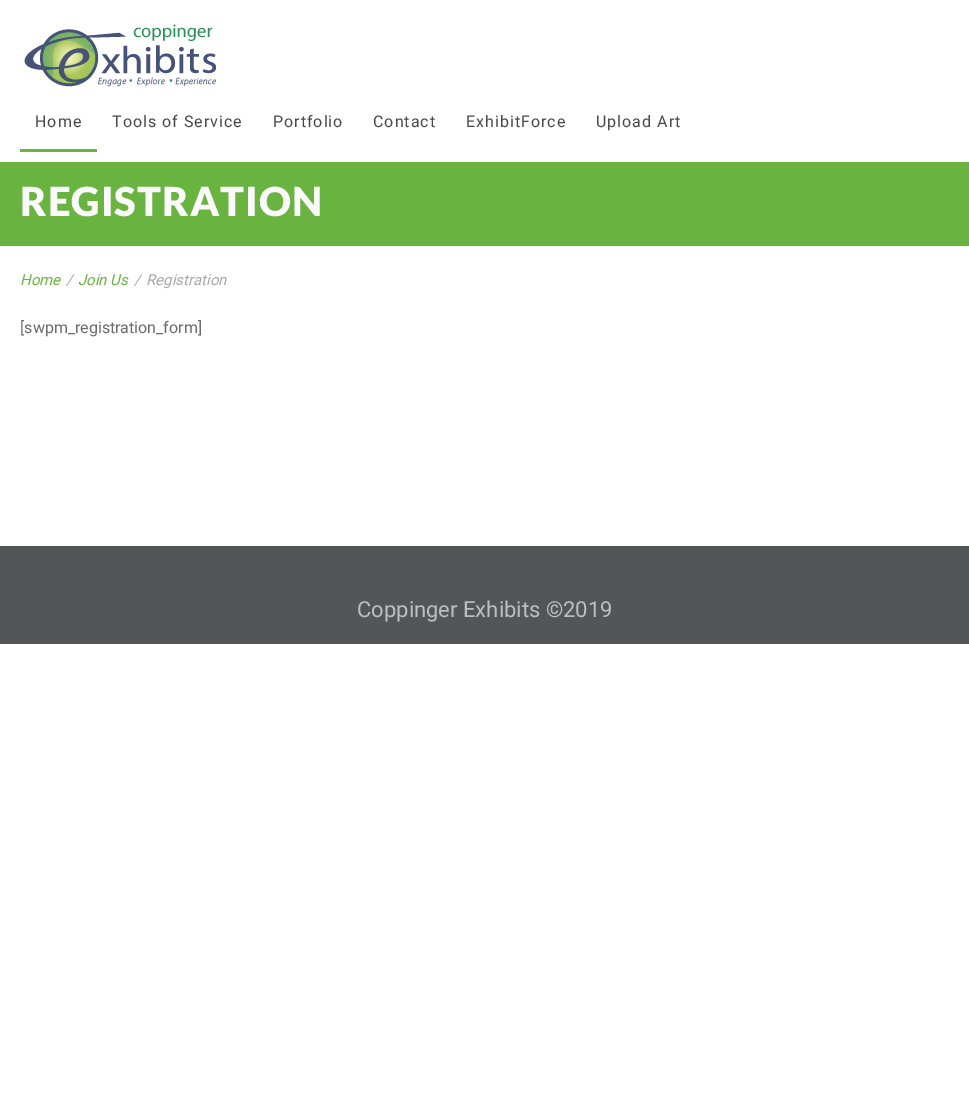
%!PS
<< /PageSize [969 1106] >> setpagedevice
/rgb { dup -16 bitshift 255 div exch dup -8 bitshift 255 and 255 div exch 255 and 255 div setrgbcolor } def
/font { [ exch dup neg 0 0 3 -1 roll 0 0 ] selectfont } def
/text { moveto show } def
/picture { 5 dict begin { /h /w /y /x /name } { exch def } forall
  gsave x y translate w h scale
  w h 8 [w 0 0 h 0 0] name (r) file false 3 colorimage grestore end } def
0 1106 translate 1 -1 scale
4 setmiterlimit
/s1 { /Roboto-Italic 15 font 16#69B341 rgb } def
/s2 { /Roboto-Italic 15 font 16#A9A9A9 rgb } def
/s3 { /Roboto-Regular 16 font 16#6B6B6B rgb } def
/s4 { /Roboto-Regular 22 font 16#BEBEBD rgb } def
16#FFFFFF rgb
0 0 969 1106 rectfill
(pic1.raw) 24 24 192 63 picture
/Roboto-Regular 16 font
16#494949 rgb
35 127 moveto 1 0 (Home) ashow
112 127 moveto 1 0 (Tools of Service) ashow
273 127 moveto 1 0 (Portfolio) ashow
373 127 moveto 1 0 (Contact) ashow
466 127 moveto 1 0 (ExhibitForce) ashow
596 127 moveto 1 0 (Upload Art) ashow
16#69B341 rgb
20 149 77 3 rectfill
0 162 969 84 rectfill
/Lato-Black 40 font
16#FAFAFA rgb
20 216 moveto 1 0 (REGISTRATION) ashow
s1
(Home) 20 285 text
s2
(/) 66 285 text
s1
(Join Us) 78 285 text
s2
(/) 134 285 text
(Registration) 146 285 text
s3
([swpm_registration_form]) 20 333 text
16#535557 rgb
0 546 969 98 rectfill
s4
(Coppinger Exhibits ©2019) 357 617 text
showpage
